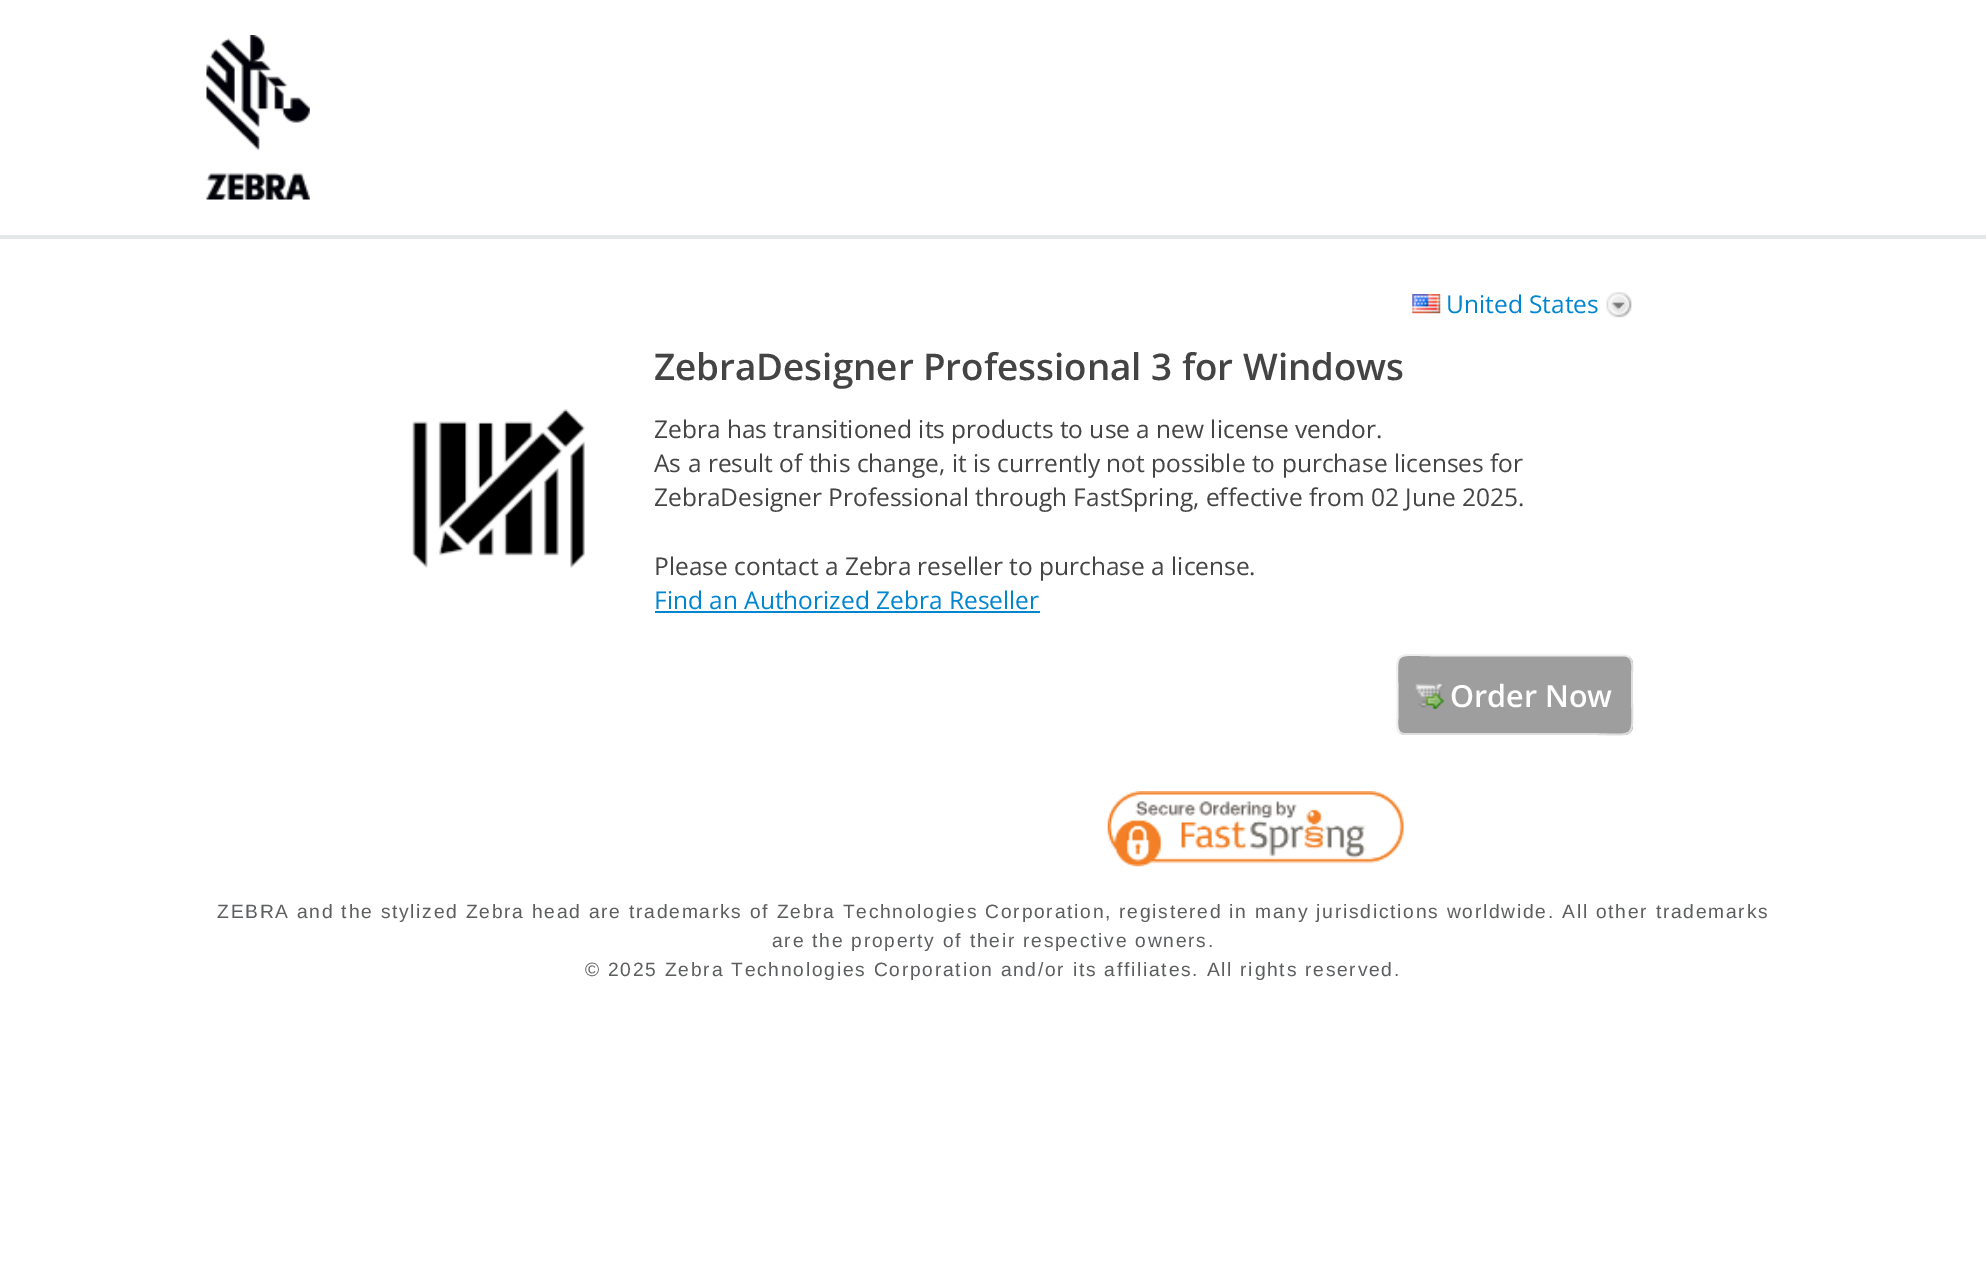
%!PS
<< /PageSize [1986 1267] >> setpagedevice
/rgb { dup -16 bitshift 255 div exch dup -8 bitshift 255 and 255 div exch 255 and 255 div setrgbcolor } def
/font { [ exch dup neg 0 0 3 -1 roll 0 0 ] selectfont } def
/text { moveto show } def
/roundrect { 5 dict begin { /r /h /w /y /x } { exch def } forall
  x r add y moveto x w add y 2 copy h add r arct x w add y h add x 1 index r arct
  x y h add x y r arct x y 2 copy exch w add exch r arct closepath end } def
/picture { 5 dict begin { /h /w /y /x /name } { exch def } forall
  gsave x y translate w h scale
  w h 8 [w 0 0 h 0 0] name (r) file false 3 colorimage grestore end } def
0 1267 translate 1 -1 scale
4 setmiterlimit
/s1 { /OpenSans-Regular 24.5 font 16#0085CF rgb } def
/s2 { /OpenSans-SemiBold 36.75 font 16#444444 rgb } def
/s3 { /OpenSans-Regular 24.5 font 16#444444 rgb } def
/s4 { /OpenSans-SemiBold 30.5 font 16#FFFFFF rgb } def
16#FFFFFF rgb
0 0 1986 1267 rectfill
16#E5E8E8 rgb
0 235 1986 4 rectfill
(pic1.raw) 206 35 104 165 picture
(pic2.raw) 1412 294 29 20 picture
s1
(United States) 1446 313 text
(pic3.raw) 1606 292 26 26 picture
s2
(ZebraDesigner Professional 3 for Windows) 654 380 text
(pic4.raw) 412 409 173 159 picture
s3
(Zebra has transitioned its products to use a new license vendor.) 654 438 text
(As a result of this change, it is currently not possible to purchase licenses for) 654 472 text
(ZebraDesigner Professional through FastSpring, effective from 02 June 2025.) 654 506 text
(Please contact a Zebra reseller to purchase a license.) 654 575 text
s1
(Find an Authorized Zebra Reseller) 654 609 text
655 611 385 2 rectfill
16#9E9E9E rgb
1397 655 236 80 9 roundrect fill
16#DEDEDE rgb
1.8 setlinewidth
1629.5 657.5 moveto 1633.5 661.5 1632 669.5 1632 674 curveto 1632 695 lineto 1632 742.5 1639 734 1587.5 734 curveto 1405 734 lineto 1403 734 1401 733.5 1399.5 732 curveto stroke
16#EEEEEE rgb
1399.5 732 moveto 1396 728 1397.5 720 1397.5 716 curveto 1397.5 695 lineto 1397.5 647 1390 655.5 1441.5 655.5 curveto 1624 655.5 lineto 1626 655.5 1628 656 1629.5 657.5 curveto stroke
(pic5.raw) 1415 683 29 26 picture
s4
(Order Now) 1450 707 text
(pic6.raw) 1107 791 297 76 picture
/LiberationSans-Regular 19.25 font
16#5C5E60 rgb
217 918 moveto 1.75 0 (ZEBRA and the stylized Zebra head are trademarks of Zebra Technologies Corporation, registered in many jurisdictions worldwide. All other trademarks) ashow
772 947 moveto 1.75 0 (are the property of their respective owners.) ashow
585 976 moveto 1.75 0 (© 2025 Zebra Technologies Corporation and/or its affiliates. All rights reserved.) ashow
showpage
